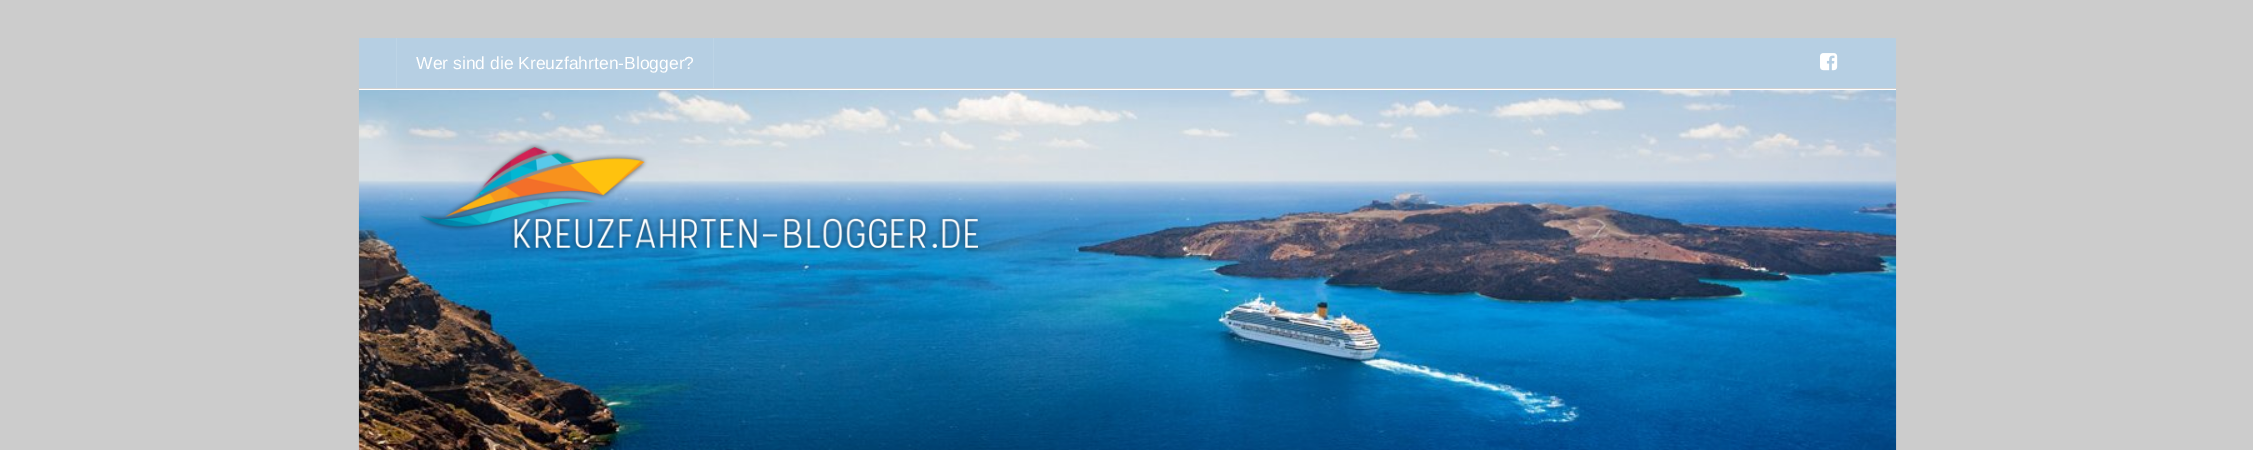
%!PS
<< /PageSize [2253 450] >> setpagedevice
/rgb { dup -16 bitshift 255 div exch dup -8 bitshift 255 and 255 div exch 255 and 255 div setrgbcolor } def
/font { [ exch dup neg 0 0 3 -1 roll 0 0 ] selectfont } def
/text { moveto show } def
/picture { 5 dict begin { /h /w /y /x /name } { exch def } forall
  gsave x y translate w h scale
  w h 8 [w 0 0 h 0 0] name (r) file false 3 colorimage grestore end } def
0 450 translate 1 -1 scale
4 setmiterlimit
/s1 { /LiberationSans-Regular 17.5 font 16#FFFFFF rgb } def
16#CCCCCC rgb
0 0 2253 450 rectfill
16#FFFFFF rgb
359 89 1537 1 rectfill
16#B6CFE3 rgb
359 38 1537 50 rectfill
16#D1D1D1 rgb
359 88 1537 1 rectfill
16#BDD4E6 rgb
713 38 1 50 rectfill
396 38 1 50 rectfill
s1
(Wer sind die Kreuzfahrten-Blogger?) 416 69 text
(pic1.raw) 1820 53 18 18 picture
(pic2.raw) 358 90 1539 360 picture
(pic3.raw) 419 143 562 110 picture
showpage
